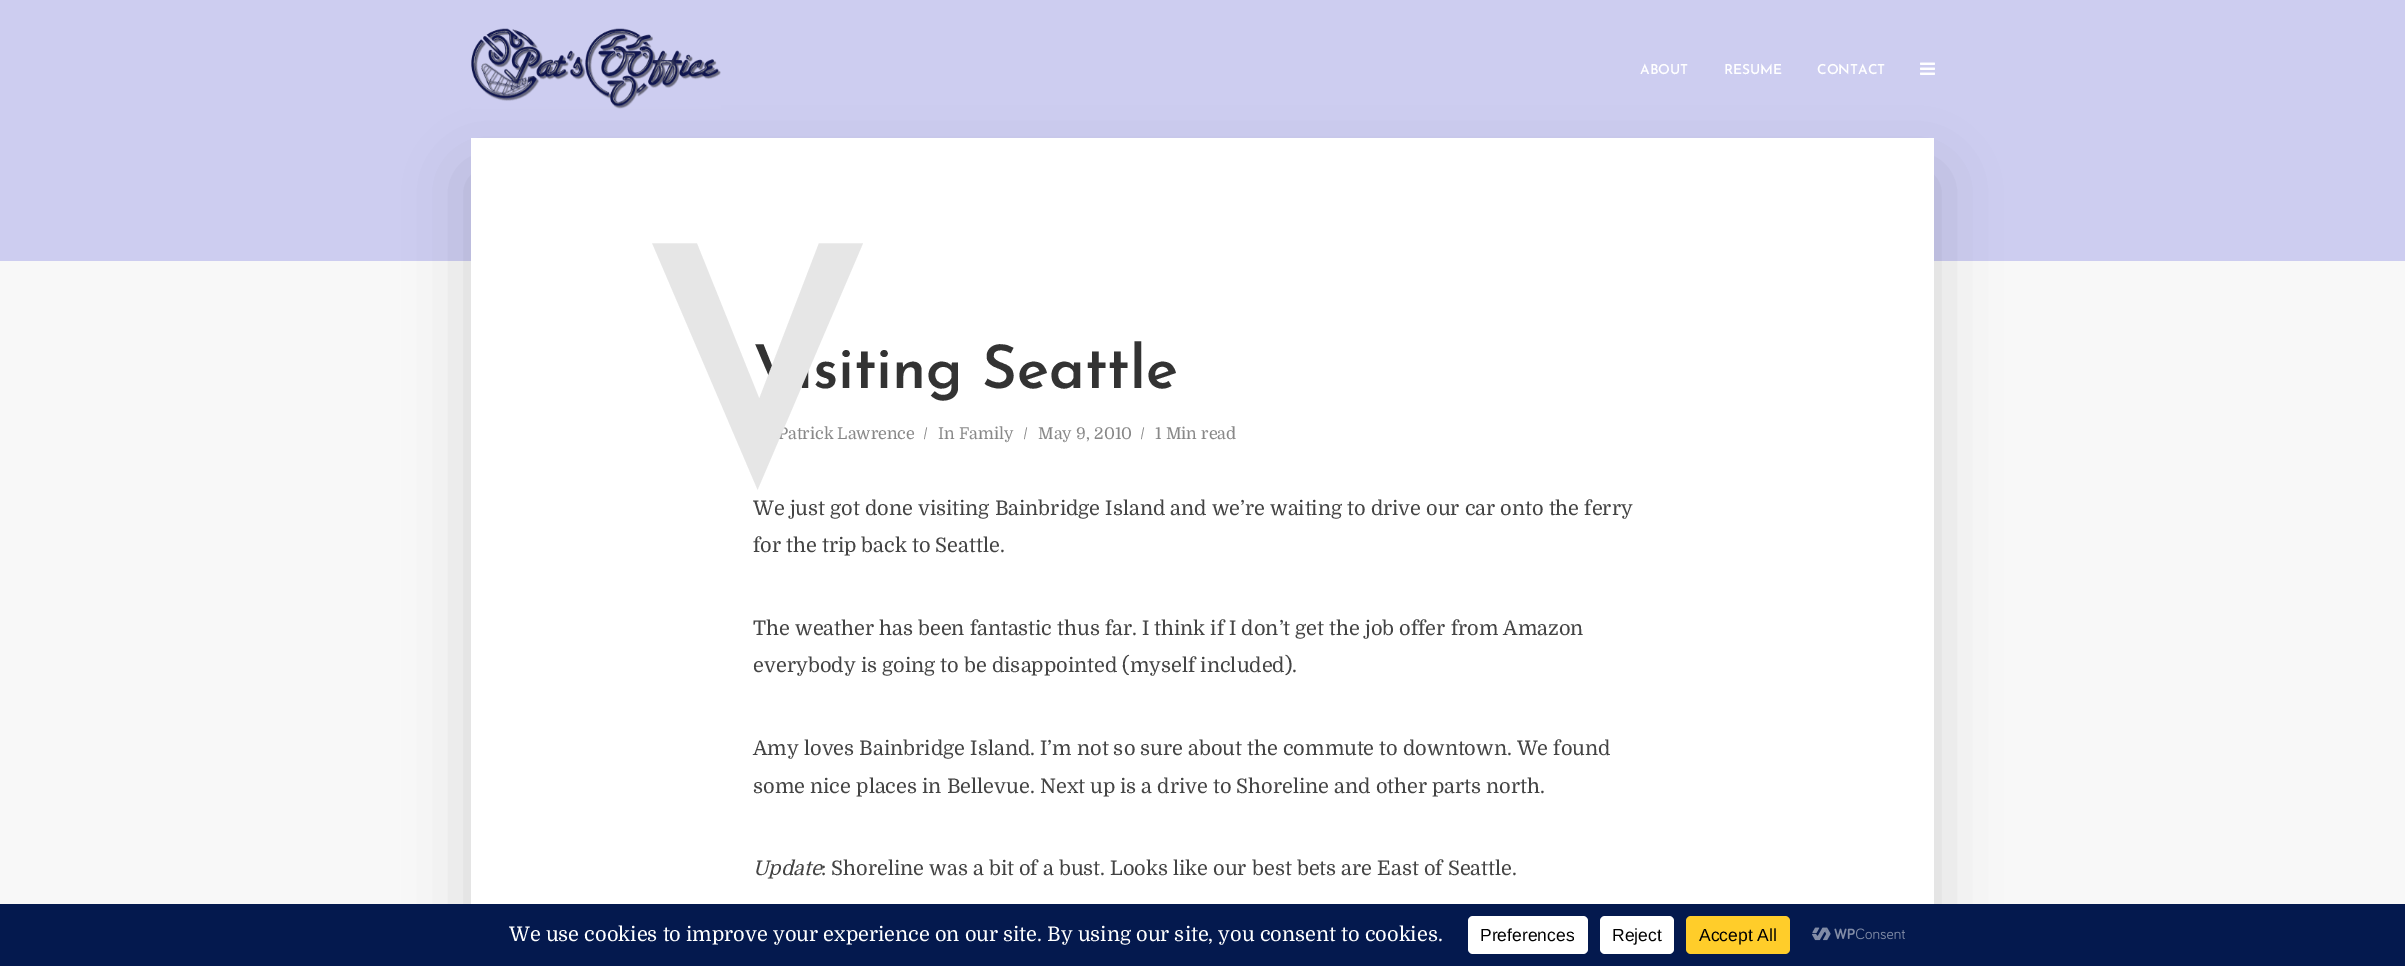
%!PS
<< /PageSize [2405 966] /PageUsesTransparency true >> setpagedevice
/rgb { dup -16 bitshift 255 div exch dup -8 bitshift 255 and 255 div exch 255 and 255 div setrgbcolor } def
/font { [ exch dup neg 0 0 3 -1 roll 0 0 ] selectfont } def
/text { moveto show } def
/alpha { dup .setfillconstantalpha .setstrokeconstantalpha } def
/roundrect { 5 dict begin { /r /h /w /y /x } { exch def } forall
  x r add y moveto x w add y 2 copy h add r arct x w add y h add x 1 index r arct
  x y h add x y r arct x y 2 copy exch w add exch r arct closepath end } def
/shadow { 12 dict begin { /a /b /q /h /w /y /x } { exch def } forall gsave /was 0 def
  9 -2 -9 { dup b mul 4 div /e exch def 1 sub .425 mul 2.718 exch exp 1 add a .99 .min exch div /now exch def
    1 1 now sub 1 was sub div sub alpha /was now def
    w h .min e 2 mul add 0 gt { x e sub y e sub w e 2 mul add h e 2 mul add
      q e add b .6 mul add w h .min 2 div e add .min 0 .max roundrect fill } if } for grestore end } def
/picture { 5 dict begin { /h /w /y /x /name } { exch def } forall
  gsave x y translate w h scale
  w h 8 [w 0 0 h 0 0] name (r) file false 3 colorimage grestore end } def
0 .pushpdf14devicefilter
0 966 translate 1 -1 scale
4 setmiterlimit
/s1 { /JosefinSans-SemiBold 13.75 font 16#FFFFFF rgb } def
/s2 { /JosefinSans-SemiBold 60 font 16#333333 rgb } def
/s3 { /Domine-Regular 16.25 font 16#888888 rgb } def
/s4 { /JosefinSans-SemiBold 325 font 16#E6E6E6 rgb } def
/s5 { /Domine-Regular 20 font 16#444444 rgb } def
/s6 { /Domine-Italic 20 font 16#444444 rgb } def
/s7 { /Domine-Regular 20 font 16#FFFFFF rgb } def
/s8 { /LiberationSans-Regular 17.5 font 16#000000 rgb } def
16#CDCDF0 rgb
0 0 2405 966 rectfill
16#F8F8F8 rgb
0 261 2405 643 rectfill
16#010101 rgb
471 175 1463 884 0 31 0.15 shadow
(pic1.raw) 471 28 250 81 picture
s1
(ABOUT) 1640 74 text
(RESUME) 1724 74 text
(CONTACT) 1817 74 text
(pic2.raw) 1920 62 15 13 picture
471 138 1463 766 rectfill
s2
(Visiting Seattle) 753 388 text
s3
(By Patrick Lawrence) 753 439 text
s4
(V) 640 479 text
s3
(/) 923 439 text
(In Family) 938 439 text
(/) 1023 439 text
(May 9, 2010) 1038 439 text
(/) 1140 439 text
(1 Min read) 1155 439 text
s5
(We just got done visiting Bainbridge Island and we’re waiting to drive our car onto the ferry) 753 515 text
(for the trip back to Seattle.) 753 552 text
(The weather has been fantastic thus far. I think if I don’t get the job offer from Amazon) 753 635 text
(everybody is going to be disappointed \(myself included\).) 753 672 text
(Amy loves Bainbridge Island. I’m not so sure about the commute to downtown. We found) 753 755 text
(some nice places in Bellevue. Next up is a drive to Shoreline and other parts north.) 753 793 text
s6
(Update) 753 875 text
s5
(: Shoreline was a bit of a bust. Looks like our best bets are East of Seattle.) 821 875 text
16#04194E rgb
0 904 2405 62 rectfill
s7
(We use cookies to improve your experience on our site. By using our site, you consent to cookies.) 509 941 text
1468 916 120 38 5 roundrect fill
s8
(Preferences) 1480 941 text
16#FFFFFF rgb
1600 916 74 38 5 roundrect fill
s8
(Reject) 1612 941 text
16#FFCD2A rgb
1686 916 104 38 5 roundrect fill
s8
(Accept All) 1699 941 text
(pic3.raw) 1812 927 93 14 picture
.poppdf14devicefilter showpage
